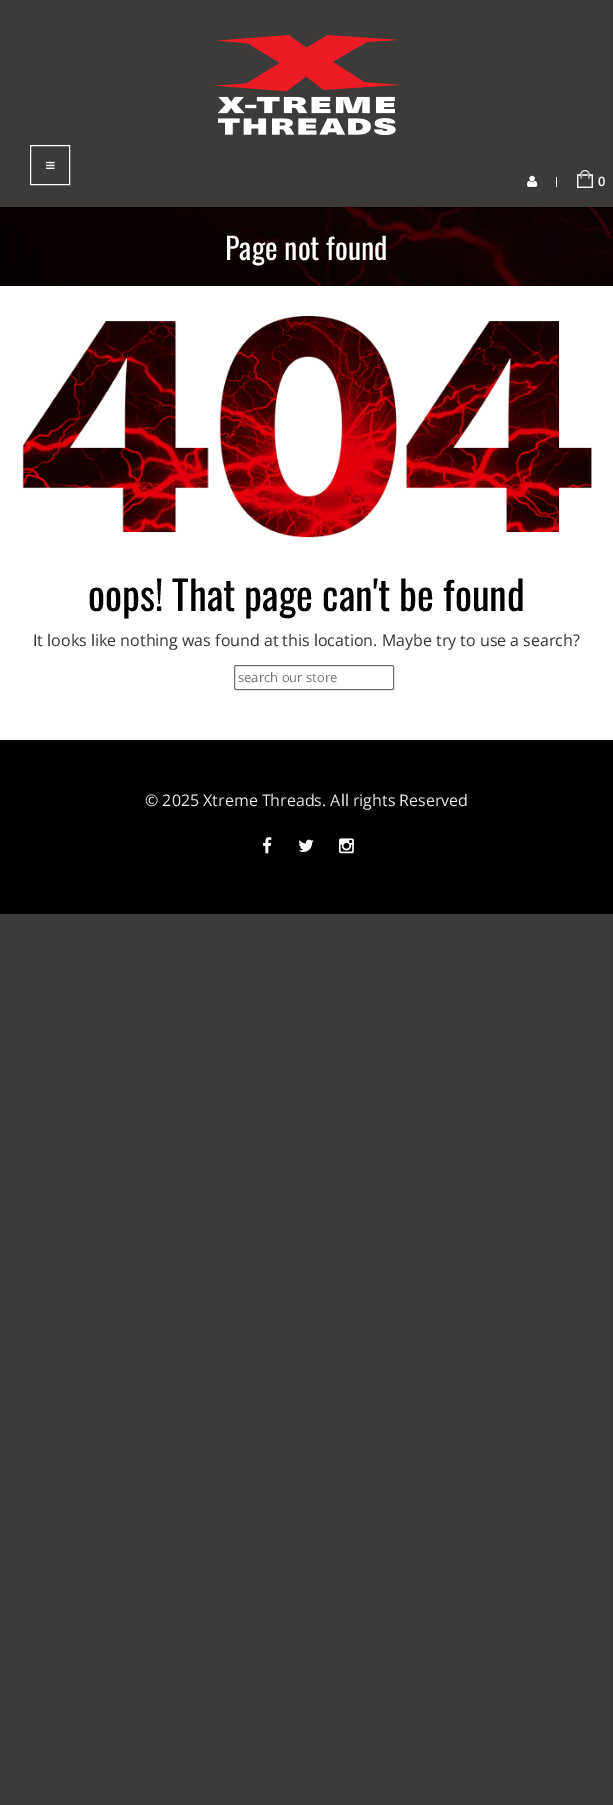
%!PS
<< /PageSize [613 1805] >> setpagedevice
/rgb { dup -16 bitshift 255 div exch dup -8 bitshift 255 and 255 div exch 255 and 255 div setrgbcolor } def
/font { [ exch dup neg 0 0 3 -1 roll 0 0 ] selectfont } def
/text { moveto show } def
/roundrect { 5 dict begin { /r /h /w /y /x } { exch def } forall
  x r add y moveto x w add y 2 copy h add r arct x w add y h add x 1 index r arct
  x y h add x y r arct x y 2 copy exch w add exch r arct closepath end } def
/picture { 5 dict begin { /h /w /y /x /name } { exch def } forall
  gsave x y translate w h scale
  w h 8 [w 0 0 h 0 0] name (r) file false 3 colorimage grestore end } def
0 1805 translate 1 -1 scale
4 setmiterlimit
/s1 { /OpenSans-SemiBold 13 font 16#FFFFFF rgb } def
/s2 { /Oswald-Regular 30 font 16#FFFFFF rgb } def
/s3 { /Oswald-Regular 40 font 16#000000 rgb } def
/s4 { /OpenSans-Regular 16 font 16#333333 rgb } def
/s5 { /OpenSans-Regular 13 font 16#757575 rgb } def
/s6 { /OpenSans-Regular 16 font 16#EAEAEA rgb } def
16#3D3B3A rgb
0 0 613 1805 rectfill
(pic1.raw) 214 35 186 100 picture
16#FFFFFF rgb
30.5 145.5 39 39 rectstroke
(pic2.raw) 46 161 9 8 picture
(pic3.raw) 527 175 11 12 picture
556 177 1 10 rectfill
(pic4.raw) 577 170 16 18 picture
s1
(0) 598 186 text
0 286 613 454 rectfill
(pic5.raw) 0 207 613 79 picture
s2
(Page not found) 225 260 text
(pic6.raw) 22 316 570 222 picture
s3
(oops! That page can't be found) 88 611 text
s4
(It looks like nothing was found at this location. Maybe try to use a search?) 33 646 text
16#767676 rgb
234.5 665.5 159 24 1.5 roundrect stroke
s5
(search our store) 238 682 text
16#000000 rgb
0 740 613 174 rectfill
s6
(© 2025 Xtreme Threads. All rights Reserved) 145 806 text
(pic7.raw) 262 837 10 17 picture
(pic8.raw) 298 839 16 13 picture
(pic9.raw) 339 838 15 16 picture
showpage
